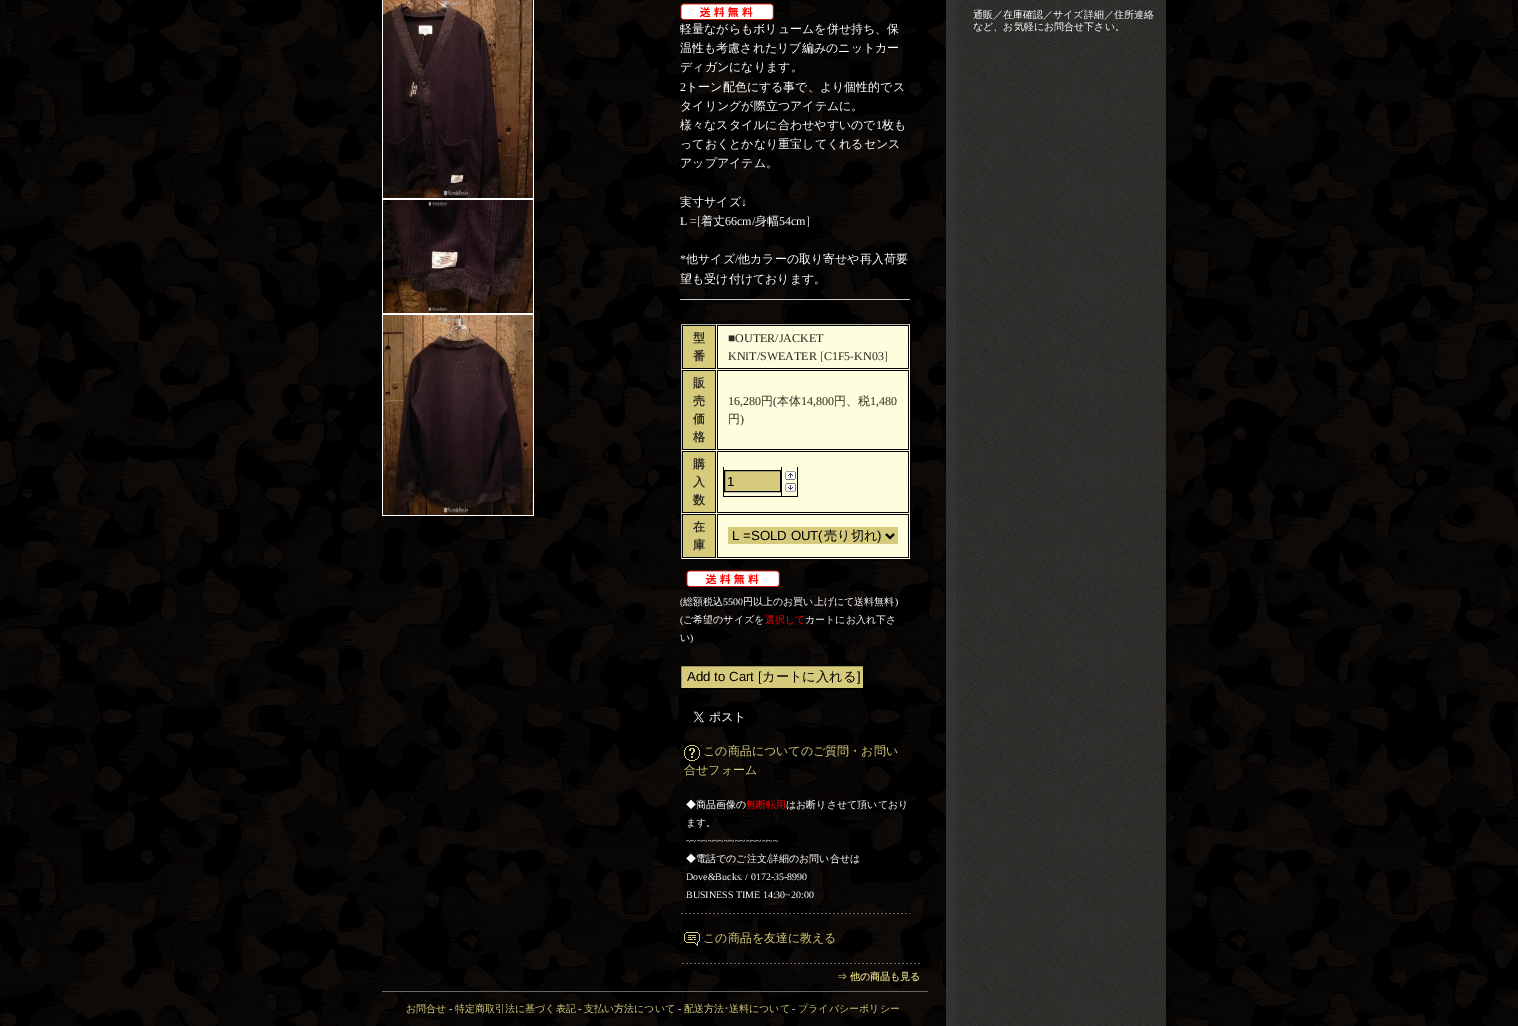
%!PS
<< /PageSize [1518 1026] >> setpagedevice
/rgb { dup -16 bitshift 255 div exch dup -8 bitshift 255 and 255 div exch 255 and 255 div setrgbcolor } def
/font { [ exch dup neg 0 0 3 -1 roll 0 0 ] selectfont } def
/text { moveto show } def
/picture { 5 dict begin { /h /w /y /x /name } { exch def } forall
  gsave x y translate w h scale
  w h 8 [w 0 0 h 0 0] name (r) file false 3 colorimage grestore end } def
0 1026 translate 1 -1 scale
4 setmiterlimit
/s1 { /WenQuanYiZenHei-Medium 10 font 16#FFFFFF rgb } def
/s2 { /WenQuanYiZenHei-Medium 12 font 16#FFFFFF rgb } def
/s3 { /LiberationSerif-Regular 12 font 16#FFFFFF rgb } def
/s4 { /WenQuanYiZenHei-Bold 12 font 16#302B21 rgb } def
/s5 { /LiberationSerif-Regular 12 font 16#302B21 rgb } def
/s6 { /WenQuanYiZenHei-Medium 12 font 16#302B21 rgb } def
/s7 { /LiberationSans-Regular 13.25 font 16#000000 rgb } def
/s8 { /WenQuanYiZenHei-Medium 13.25 font 16#000000 rgb } def
/s9 { /LiberationSerif-Regular 10 font 16#FFFFFF rgb } def
/s10 { /WenQuanYiZenHei-Medium 10 font 16#FF0000 rgb } def
/s11 { /WenQuanYiZenHei-Medium 12 font 16#D6CB7C rgb } def
/s12 { /WenQuanYiZenHei-Bold 10 font 16#D6CB7C rgb } def
/s13 { /WenQuanYiZenHei-Medium 10 font 16#D6CB7C rgb } def
/s14 { /IPAPGothic-Regular 10 font 16#D6CB7C rgb } def
16#FFFFFF rgb
0 0 1518 1026 rectfill
(pic1.raw) 0 0 1518 1026 picture
(pic2.raw) 946 0 220 1026 picture
s1
(通販／在庫確認／サイズ詳細／住所連絡) 973 18 text
(など、お気軽にお問合せ下さい。) 973 30 text
382 0 152 516 rectfill
(pic3.raw) 383 0 150 198 picture
(pic4.raw) 383 200 150 113 picture
(pic5.raw) 383 315 150 200 picture
16#CCCCCC rgb
680 299 230 1 rectfill
(pic6.raw) 680 3 94 17 picture
s2
(軽量ながらもボリュームを併せ持ち、保) 680 33 text
(温性も考慮されたリブ編みのニットカー) 680 52 text
(ディガンになります。) 680 71 text
s3
(2) 680 91 text
s2
(トーン配色にする事で、より個性的でス) 686 91 text
(タイリングが際立つアイテムに。) 680 110 text
(様々なスタイルに合わせやすいので) 680 129 text
s3
(1) 876 129 text
s2
(枚も) 882 129 text
(っておくとかなり重宝してくれるセンス) 680 148 text
(アップアイテム。) 680 167 text
(実寸サイズ) 680 206 text
s3
(↓) 741 206 text
(L =[) 680 225 text
s2
(着丈) 701 225 text
s3
(66cm/) 725 225 text
s2
(身幅) 755 225 text
s3
(54cm]) 779 225 text
(*) 680 263 text
s2
(他サイズ) 686 263 text
s3
(/) 735 263 text
s2
(他カラーの取り寄せや再入荷要) 738 263 text
(望も受け付けております。) 680 283 text
16#FEFDDD rgb
680.5 323.5 moveto 910.5 323.5 lineto 910.5 559.5 lineto 680.5 559.5 lineto closepath gsave fill grestore
16#000000 rgb
stroke
16#D6CB7C rgb
683 326 32 42 rectfill
16#000000 rgb
682 325 34 1 rectfill
715 325 1 44 rectfill
682 368 34 1 rectfill
682 325 1 44 rectfill
s4
(型) 693 342 text
(番) 693 360 text
16#000000 rgb
717 325 192 1 rectfill
908 325 1 44 rectfill
717 368 192 1 rectfill
717 325 1 44 rectfill
s5
(■OUTER/JACKET) 728 342 text
(KNIT/SWEATER [C1F5-KN03]) 728 360 text
16#D6CB7C rgb
683 371 32 78 rectfill
16#000000 rgb
682 370 34 1 rectfill
715 370 1 80 rectfill
682 449 34 1 rectfill
682 370 1 80 rectfill
s4
(販) 693 387 text
(売) 693 405 text
(価) 693 423 text
(格) 693 441 text
16#000000 rgb
717 370 192 1 rectfill
908 370 1 80 rectfill
717 449 192 1 rectfill
717 370 1 80 rectfill
s5
(16,280) 728 405 text
s6
(円) 761 405 text
s5
(\() 773 405 text
s6
(本体) 777 405 text
s5
(14,800) 801 405 text
s6
(円、税) 834 405 text
s5
(1,480) 870 405 text
s6
(円) 728 423 text
s5
(\)) 740 423 text
16#D6CB7C rgb
683 452 32 60 rectfill
16#000000 rgb
682 451 34 1 rectfill
715 451 1 62 rectfill
682 512 34 1 rectfill
682 451 1 62 rectfill
s4
(購) 693 468 text
(入) 693 486 text
(数) 693 504 text
16#000000 rgb
717 451 192 1 rectfill
908 451 1 62 rectfill
717 512 192 1 rectfill
717 451 1 62 rectfill
723 496 74 1 rectfill
723 467 1 30 rectfill
16#D6CB7C rgb
724.5 470.5 moveto 780.5 470.5 lineto 780.5 491.5 lineto 724.5 491.5 lineto closepath gsave fill grestore
16#000000 rgb
stroke
s7
(1) 727 486 text
781 467 1 30 rectfill
(pic7.raw) 785 471 11 9 picture
(pic8.raw) 785 483 11 9 picture
797 467 1 30 rectfill
16#D6CB7C rgb
683 515 32 42 rectfill
16#000000 rgb
682 514 34 1 rectfill
715 514 1 44 rectfill
682 557 34 1 rectfill
682 514 1 44 rectfill
s4
(在) 693 531 text
(庫) 693 549 text
16#000000 rgb
717 514 192 1 rectfill
908 514 1 44 rectfill
717 557 192 1 rectfill
717 514 1 44 rectfill
16#D6CB7C rgb
728 527 170 17 rectfill
16#000000 rgb
2 setlinewidth
886 534 moveto 890 538 lineto 894 534 lineto stroke
s7
(L =SOLD OUT\() 732 540 text
s8
(売り切れ) 824 540 text
s7
(\)) 877 540 text
(pic9.raw) 686 570 94 17 picture
s9
(\() 680 605 text
s1
(総額税込) 683 605 text
s9
(5500) 723 605 text
s1
(円以上のお買い上げにて送料無料) 743 605 text
s9
(\)) 895 605 text
(\() 680 623 text
s1
(ご希望のサイズを) 683 623 text
s10
(選択して) 765 623 text
s1
(カートにお入れ下さ) 805 623 text
(い) 680 641 text
s9
(\)) 690 641 text
16#D6CB7C rgb
680.5 665.5 moveto 863.5 665.5 lineto 863.5 688.5 lineto 680.5 688.5 lineto closepath gsave fill grestore
16#000000 rgb
1 setlinewidth
stroke
s7
(Add to Cart [) 687 681 text
s8
(カートに入れる) 762 681 text
s7
(]) 857 681 text
(pic10.raw) 681 707 77 20 picture
(pic11.raw) 684 745 16 16 picture
s11
(この商品についてのご質問・お問い) 703 755 text
(合せフォーム) 684 774 text
(pic12.raw) 681 913 229 1 picture
s1
(◆商品画像の) 686 808 text
s10
(無断転用) 746 808 text
s1
(はお断りさせて頂いており) 786 808 text
(ます。) 686 826 text
s9
(~~~~~~~~~~~~~~~~~) 686 844 text
s1
(◆電話でのご注文) 686 862 text
s9
(/) 767 862 text
s1
(詳細のお問い合せは) 769 862 text
s9
(Dove&Bucks. / 0172-35-8990) 686 880 text
(BUSINESS TIME 14:30~20:00) 686 898 text
(pic13.raw) 684 932 16 14 picture
s11
(この商品を友達に教える) 703 942 text
(pic14.raw) 682 963 238 1 picture
s12
(⇒ 他の商品も見る) 837 980 text
16#666666 rgb
382 991 546 1 rectfill
s13
(お問合せ) 406 1012 text
(特定商取引法に基づく表記) 455 1012 text
(支払い方法について) 584 1012 text
(配送方法) 684 1012 text
s14
(･) 724 1012 text
s13
(送料について) 729 1012 text
(プライバシーポリシー) 798 1012 text
s9
(-) 449 1012 text
(-) 578 1012 text
(-) 678 1012 text
(-) 792 1012 text
showpage
